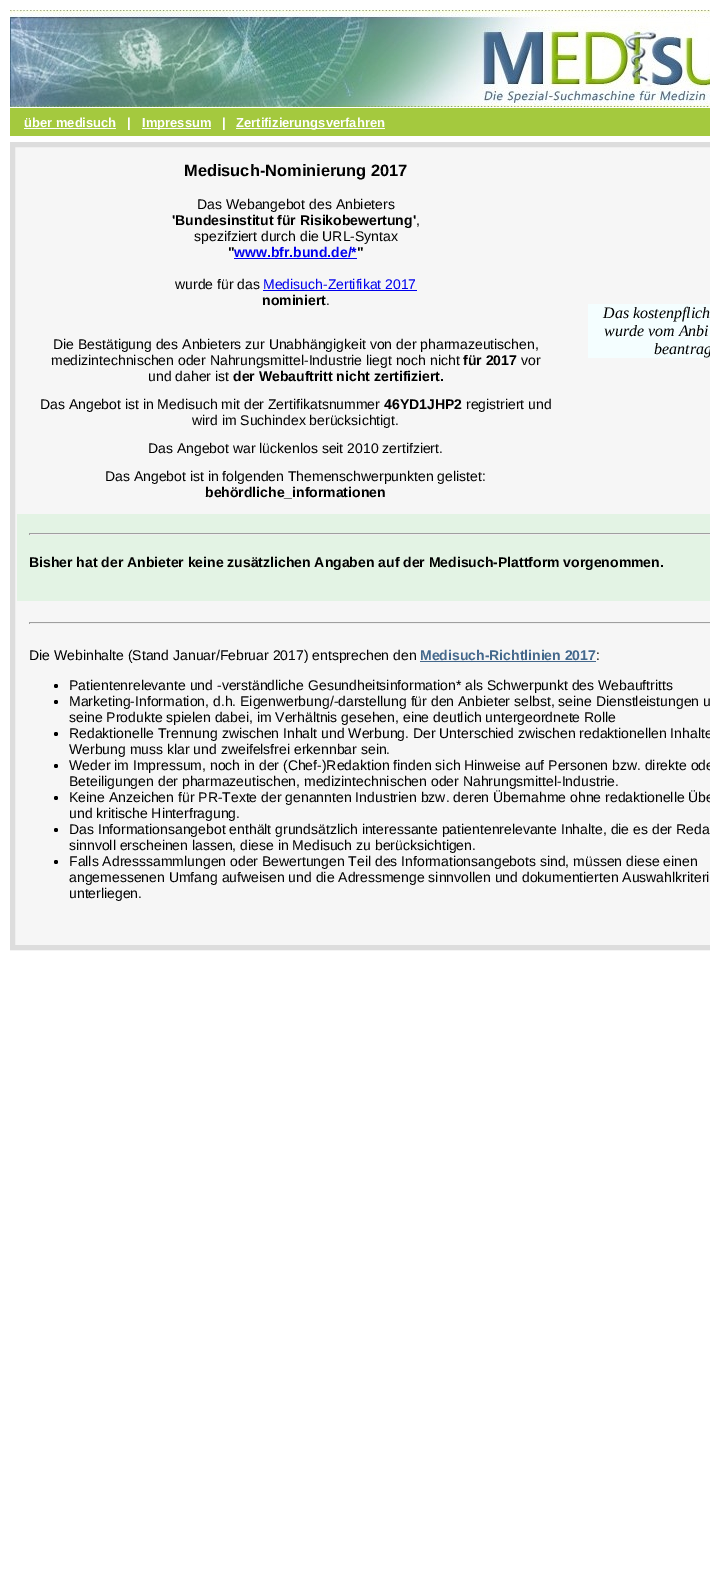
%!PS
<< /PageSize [710 1579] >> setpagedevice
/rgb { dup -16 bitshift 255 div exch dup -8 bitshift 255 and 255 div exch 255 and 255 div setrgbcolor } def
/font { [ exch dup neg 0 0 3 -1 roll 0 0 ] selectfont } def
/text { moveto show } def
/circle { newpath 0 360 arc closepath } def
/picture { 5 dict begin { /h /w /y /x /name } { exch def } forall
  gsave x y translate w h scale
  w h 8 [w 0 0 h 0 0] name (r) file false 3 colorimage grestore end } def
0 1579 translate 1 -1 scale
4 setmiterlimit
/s1 { /LiberationSans-Bold 13 font 16#FFFFFF rgb } def
/s2 { /LiberationSans-Bold 16.4 font 16#000000 rgb } def
/s3 { /LiberationSans-Regular 14 font 16#000000 rgb } def
/s4 { /LiberationSans-Bold 14 font 16#000000 rgb } def
/s5 { /LiberationSans-Bold 14 font 16#0000EE rgb } def
/s6 { /LiberationSans-Regular 14 font 16#0000EE rgb } def
/s7 { /LiberationSerif-Italic 16 font 16#000000 rgb } def
/s8 { /LiberationSans-Bold 14 font 16#44688C rgb } def
16#FFFFFF rgb
0 0 710 1579 rectfill
(pic1.raw) 10 10 700 97 picture
16#A4C93E rgb
10 108 700 28 rectfill
s1
(über medisuch) 24 127 text
24 128 92 1 rectfill
(|) 127 127 text
142 128 69 1 rectfill
(Impressum) 142 127 text
(|) 222 127 text
236 128 149 1 rectfill
(Zertifizierungsverfahren) 236 127 text
16#F6F6F6 rgb
12.5 144.5 moveto 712.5 144.5 lineto 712.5 947.5 lineto 12.5 947.5 lineto closepath gsave fill grestore
16#DDDDDD rgb
5 setlinewidth
stroke
s2
(Medisuch-Nominierung 2017) 184 176 text
s3
(Das Webangebot des Anbieters) 197 209 text
s4
('Bundesinstitut für Risikobewertung') 172 225 text
s3
(,) 416 225 text
(spezifziert durch die URL-Syntax) 194 241 text
s4
(") 228 257 text
s5
(www.bfr.bund.de/*) 234 257 text
234 258 123 1 rectfill
s4
(") 357 257 text
s3
(wurde für das) 175 289 text
s6
(Medisuch-Zertifikat 2017) 263 289 text
263 290 154 1 rectfill
s4
(nominiert) 262 305 text
s3
(.) 326 305 text
(Die Bestätigung des Anbieters zur Unabhängigkeit von der pharmazeutischen,) 53 349 text
(medizintechnischen oder Nahrungsmittel-Industrie liegt noch nicht) 51 365 text
s4
(für 2017) 463 365 text
s3
(vor) 521 365 text
(und daher ist) 148 381 text
s4
(der Webauftritt nicht zertifiziert.) 233 381 text
s3
(Das Angebot ist in Medisuch mit der Zertifikatsnummer) 40 409 text
s4
(46YD1JHP2) 384 409 text
s3
(registriert und) 466 409 text
(wird im Suchindex berücksichtigt.) 192 425 text
(Das Angebot war lückenlos seit 2010 zertifziert.) 148 453 text
(Das Angebot ist in folgenden Themenschwerpunkten gelistet:) 105 481 text
s4
(behördliche_informationen) 205 497 text
16#F4FEFF rgb
588 304 122 54 rectfill
s7
(Das kostenpflich) 603 318 text
(wurde vom Anbi) 604 336 text
(beantrag) 654 354 text
16#E3F3E4 rgb
17 514 693 87 rectfill
16#9F9F9F rgb
29 533 681 1 rectfill
16#EEEEEE rgb
29 534 681 1 rectfill
16#9F9F9F rgb
29 533 1 2 rectfill
s4
(Bisher hat der Anbieter keine zusätzlichen Angaben auf der Medisuch-Plattform vorgenommen.) 29 567 text
16#9F9F9F rgb
29 622 681 1 rectfill
16#EEEEEE rgb
29 623 681 1 rectfill
16#9F9F9F rgb
29 622 1 2 rectfill
s3
(Die Webinhalte \(Stand Januar/Februar 2017\) entsprechen den) 29 660 text
s8
(Medisuch-Richtlinien 2017) 420 660 text
420 661 176 1 rectfill
s3
(:) 596 660 text
56 686 2 circle fill
(Patientenrelevante und -verständliche Gesundheitsinformation* als Schwerpunkt des Webauftritts) 69 690 text
56 702 2 circle fill
(Marketing-Information, d.h. Eigenwerbung/-darstellung für den Anbieter selbst, seine Dienstleistungen u) 69 706 text
(seine Produkte spielen dabei, im Verhältnis gesehen, eine deutlich untergeordnete Rolle) 69 722 text
56 734 2 circle fill
(Redaktionelle Trennung zwischen Inhalt und Werbung. Der Unterschied zwischen redaktionellen Inhalte) 69 738 text
(Werbung muss klar und zweifelsfrei erkennbar sein.) 69 754 text
56 766 2 circle fill
(Weder im Impressum, noch in der \(Chef-\)Redaktion finden sich Hinweise auf Personen bzw. direkte ode) 69 770 text
(Beteiligungen der pharmazeutischen, medizintechnischen oder Nahrungsmittel-Industrie.) 69 786 text
56 798 2 circle fill
(Keine Anzeichen für PR-Texte der genannten Industrien bzw. deren Übernahme ohne redaktionelle Übe) 69 802 text
(und kritische Hinterfragung.) 69 818 text
56 830 2 circle fill
(Das Informationsangebot enthält grundsätzlich interessante patientenrelevante Inhalte, die es der Reda) 69 834 text
(sinnvoll erscheinen lassen, diese in Medisuch zu berücksichtigen.) 69 850 text
56 862 2 circle fill
(Falls Adresssammlungen oder Bewertungen Teil des Informationsangebots sind, müssen diese einen) 69 866 text
(angemessenen Umfang aufweisen und die Adressmenge sinnvollen und dokumentierten Auswahlkriteri) 69 882 text
(unterliegen.) 69 898 text
showpage
